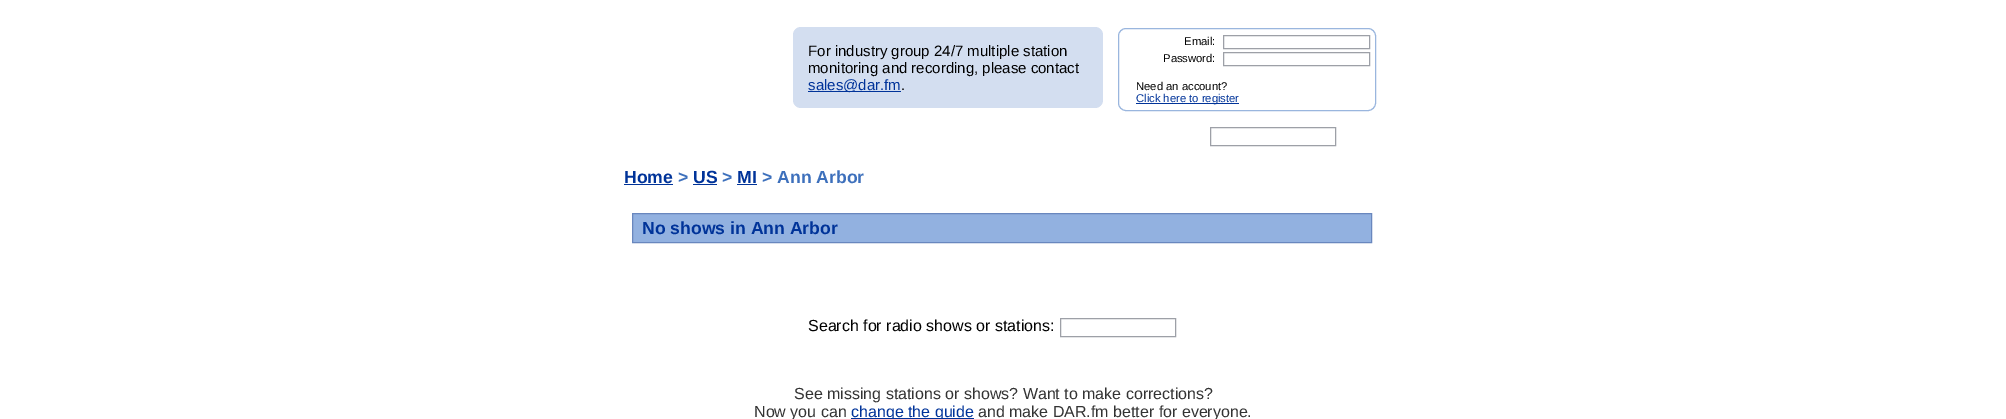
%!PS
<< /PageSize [2006 419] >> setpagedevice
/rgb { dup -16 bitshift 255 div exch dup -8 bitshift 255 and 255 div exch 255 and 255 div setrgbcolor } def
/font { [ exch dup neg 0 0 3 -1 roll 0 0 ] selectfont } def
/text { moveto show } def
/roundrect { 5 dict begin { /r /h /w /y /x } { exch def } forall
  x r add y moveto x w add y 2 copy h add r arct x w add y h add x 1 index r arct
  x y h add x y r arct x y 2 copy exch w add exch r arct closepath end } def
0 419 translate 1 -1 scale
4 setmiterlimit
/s1 { /LiberationSans-Regular 15 font 16#000000 rgb } def
/s2 { /LiberationSans-Regular 15 font 16#003399 rgb } def
/s3 { /LiberationSans-Regular 11.25 font 16#000000 rgb } def
/s4 { /LiberationSans-Regular 11.25 font 16#003399 rgb } def
/s5 { /LiberationSans-Bold 17.6 font 16#003399 rgb } def
/s6 { /LiberationSans-Bold 17.6 font 16#3D70BC rgb } def
/s7 { /LiberationSans-Regular 16 font 16#000000 rgb } def
/s8 { /LiberationSans-Regular 16 font 16#333333 rgb } def
/s9 { /LiberationSans-Regular 16 font 16#003399 rgb } def
16#FFFFFF rgb
0 0 2006 419 rectfill
16#D3DEF0 rgb
793 27 310 81 8 roundrect fill
s1
(For industry group 24/7 multiple station) 808 56 text
(monitoring and recording, please contact) 808 73 text
16#003399 rgb
808 91 93 1 rectfill
(sales@dar.fm) 808 90 text
s1
(.) 901 90 text
16#9AB6DE rgb
1118.5 28.5 257 82 7.5 roundrect stroke
s3
(Email:) 1184 45 text
16#9DA0A7 rgb
1223.5 35.5 146 13 rectstroke
s3
(Password:) 1163 62 text
16#9DA0A7 rgb
1223.5 52.5 146 13 rectstroke
s3
(Need an account?) 1136 90 text
16#003399 rgb
1136 103 103 1 rectfill
(Click here to register) 1136 102 text
16#9DA0A7 rgb
1210.5 127.5 125 18 rectstroke
s5
(Home) 624 183 text
624 184 49 1 rectfill
s6
(>) 678 183 text
s5
(US) 693 183 text
693 184 24 1 rectfill
s6
(>) 722 183 text
s5
(MI) 737 183 text
737 184 20 1 rectfill
s6
(> Ann Arbor) 762 183 text
16#92B1E0 rgb
632.5 213.5 moveto 1371.5 213.5 lineto 1371.5 242.5 lineto 632.5 242.5 lineto closepath gsave fill grestore
16#6987BE rgb
stroke
s5
(No shows in Ann Arbor) 642 234 text
s7
(Search for radio shows or stations:) 808 331 text
16#9DA0A7 rgb
1060.5 318.5 115 18 rectstroke
s8
(See missing stations or shows? Want to make corrections?) 794 399 text
(Now you can) 754 417 text
16#003399 rgb
851 418 123 1 rectfill
(change the guide) 851 417 text
s8
(and make DAR.fm better for everyone.) 978 417 text
showpage
